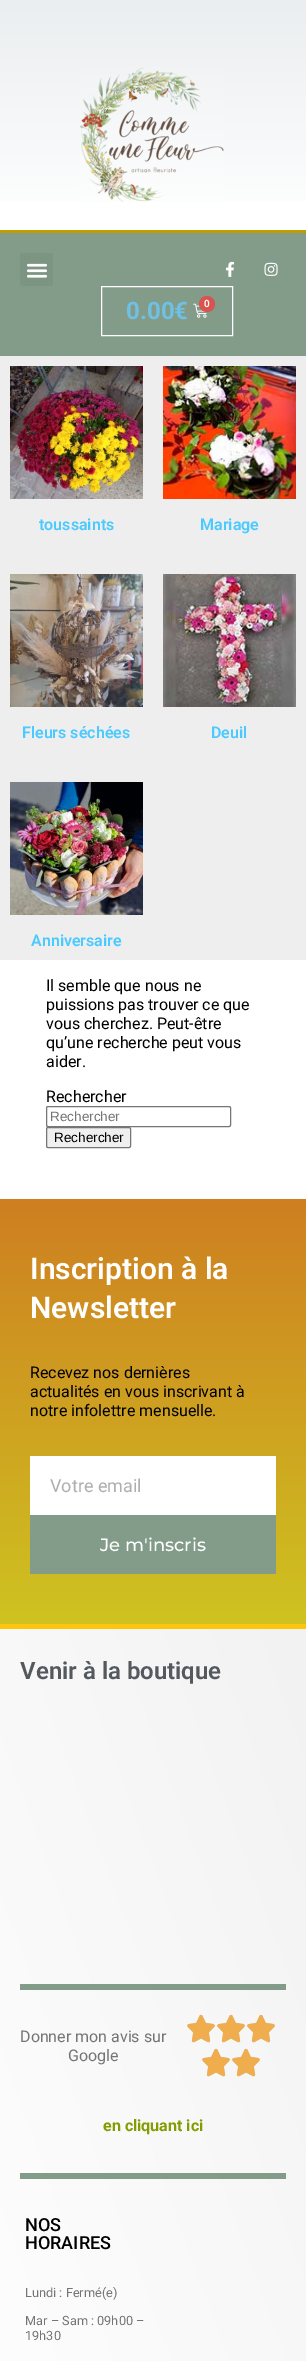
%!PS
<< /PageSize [306 2361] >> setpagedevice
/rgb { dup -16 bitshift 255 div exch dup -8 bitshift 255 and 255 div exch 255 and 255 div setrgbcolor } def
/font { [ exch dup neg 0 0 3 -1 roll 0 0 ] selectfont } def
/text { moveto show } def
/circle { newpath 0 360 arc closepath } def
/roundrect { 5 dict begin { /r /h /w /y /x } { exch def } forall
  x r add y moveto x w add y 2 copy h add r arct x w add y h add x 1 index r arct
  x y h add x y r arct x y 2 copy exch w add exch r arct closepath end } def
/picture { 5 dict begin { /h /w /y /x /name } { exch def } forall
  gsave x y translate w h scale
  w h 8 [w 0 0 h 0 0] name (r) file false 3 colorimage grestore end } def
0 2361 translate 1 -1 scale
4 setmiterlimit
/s1 { /Roboto-Bold 24 font 16#6EC1E4 rgb } def
/s2 { /Roboto-SemiBold 10 font 16#FFFFFF rgb } def
/s3 { /Roboto-SemiBold 16 font 16#4BCAFF rgb } def
/s4 { /Roboto-Regular 16 font 16#000000 rgb } def
/s5 { /LiberationSans-Regular 13.5 font 16#757575 rgb } def
/s6 { /LiberationSans-Regular 13.5 font 16#000000 rgb } def
/s7 { /Roboto-SemiBold 30 font 16#FFFFFF rgb } def
/s8 { /Roboto-Regular 18 font 16#AFAFAF rgb } def
/s9 { /Montserrat-Medium 18 font 16#FFFFFF rgb } def
/s10 { /Roboto-SemiBold 24 font 16#54595F rgb } def
/s11 { /Roboto-Regular 16 font 16#757575 rgb } def
/s12 { /Roboto-Bold 16 font 16#839C00 rgb } def
/s13 { /Roboto-Medium 18 font 16#000000 rgb } def
/s14 { /Roboto-Regular 12.75 font 16#757575 rgb } def
16#FFFFFF rgb
0 0 306 2361 rectfill
gsave 0 0 moveto 306 0 lineto 306 201 lineto 0 201 lineto closepath clip newpath
<< /ShadingType 2 /ColorSpace /DeviceRGB /Coords [153 0 153 230] /Extend [true true] /Function << /FunctionType 2 /Domain [0 1] /C0 [0.922 0.933 0.941] /C1 [1 1 1] /N 1 >> >> shfill grestore
(pic1.raw) 79 67 145 135 picture
16#839C89 rgb
0 233 306 123 rectfill
16#BF9F00 rgb
0 230 306 3 rectfill
16#7C9482 rgb
20 253 33 33 3 roundrect fill
(pic2.raw) 27 263 20 15 picture
(pic3.raw) 226 261 8 16 picture
(pic4.raw) 264 262 14 14 picture
16#FFFFFF rgb
101.5 286.5 131 49 rectstroke
s1
(0.00€) 126 319 text
(pic5.raw) 193 303 14 15 picture
16#D9534F rgb
207 304 8 circle fill
s2
(0) 204 307 text
16#EEEEEE rgb
0 356 306 604 rectfill
(pic6.raw) 10 366 133 133 picture
s3
(toussaints) 39 530 text
(pic7.raw) 163 366 133 133 picture
(Mariage) 200 530 text
(pic8.raw) 10 574 133 133 picture
(Fleurs séchées) 22 738 text
(pic9.raw) 163 574 133 133 picture
(Deuil) 211 738 text
(pic10.raw) 10 782 133 133 picture
(Anniversaire) 31 946 text
s4
(Il semble que nous ne) 46 991 text
(puissions pas trouver ce que) 46 1010 text
(vous cherchez. Peut-être) 46 1029 text
(qu’une recherche peut vous) 46 1048 text
(aider.) 46 1067 text
(Rechercher) 46 1102 text
16#767676 rgb
46.5 1106.5 184 20 1.5 roundrect stroke
s5
(Rechercher) 50 1121 text
16#EFEFEF rgb
46.5 1127.5 84 20 1.5 roundrect gsave fill grestore
16#767676 rgb
stroke
s6
(Rechercher) 54 1142 text
gsave 0 1199 moveto 306 1199 lineto 306 1624 lineto 0 1624 lineto closepath clip newpath
<< /ShadingType 2 /ColorSpace /DeviceRGB /Coords [153 1199 153 1624] /Extend [true true] /Function << /FunctionType 2 /Domain [0 1] /C0 [0.808 0.498 0.125] /C1 [0.808 0.765 0.125] /N 1 >> >> shfill grestore
s7
(Inscription à la) 30 1279 text
(Newsletter) 30 1318 text
s4
(Recevez nos dernières) 30 1378 text
(actualités en vous inscrivant à) 30 1397 text
(notre infolettre mensuelle.) 30 1416 text
16#FFFFFF rgb
30 1456 246 59 rectfill
s8
(Votre email) 50 1492 text
16#839C89 rgb
30 1515 246 59 rectfill
s9
(Je m'inscris) 100 1551 text
gsave 0 1629 moveto 306 1629 lineto 306 2361 lineto 0 2361 lineto closepath clip newpath
<< /ShadingType 2 /ColorSpace /DeviceRGB /Coords [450 2025 -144 2242] /Extend [true true] /Function << /FunctionType 2 /Domain [0 1] /C0 [0.949 0.949 0.949] /C1 [1 1 1] /N 1 >> >> shfill grestore
16#FFC40E rgb
0 1624 306 5 rectfill
s10
(Venir à la boutique) 20 1679 text
16#839C89 rgb
20 1984 266 6 rectfill
s11
(Donner mon avis sur) 20 2042 text
(Google) 68 2061 text
(pic12.raw) 187 2015 28 28 picture
(pic11.raw) 187 2014 28 29 picture
(pic14.raw) 217 2015 28 28 picture
(pic13.raw) 217 2014 28 29 picture
(pic16.raw) 247 2015 28 28 picture
(pic15.raw) 247 2014 28 29 picture
(pic18.raw) 202 2049 28 28 picture
(pic17.raw) 202 2048 28 29 picture
(pic20.raw) 232 2049 28 28 picture
(pic19.raw) 232 2048 28 29 picture
s12
(en cliquant ici) 103 2131 text
16#839C89 rgb
20 2173 266 6 rectfill
s13
(NOS) 25 2231 text
(HORAIRES) 25 2249 text
s14
(Lundi : Fermé\(e\)) 25 2297 text
(Mar – Sam : 09h00 –) 25 2325 text
(19h30) 25 2340 text
showpage
